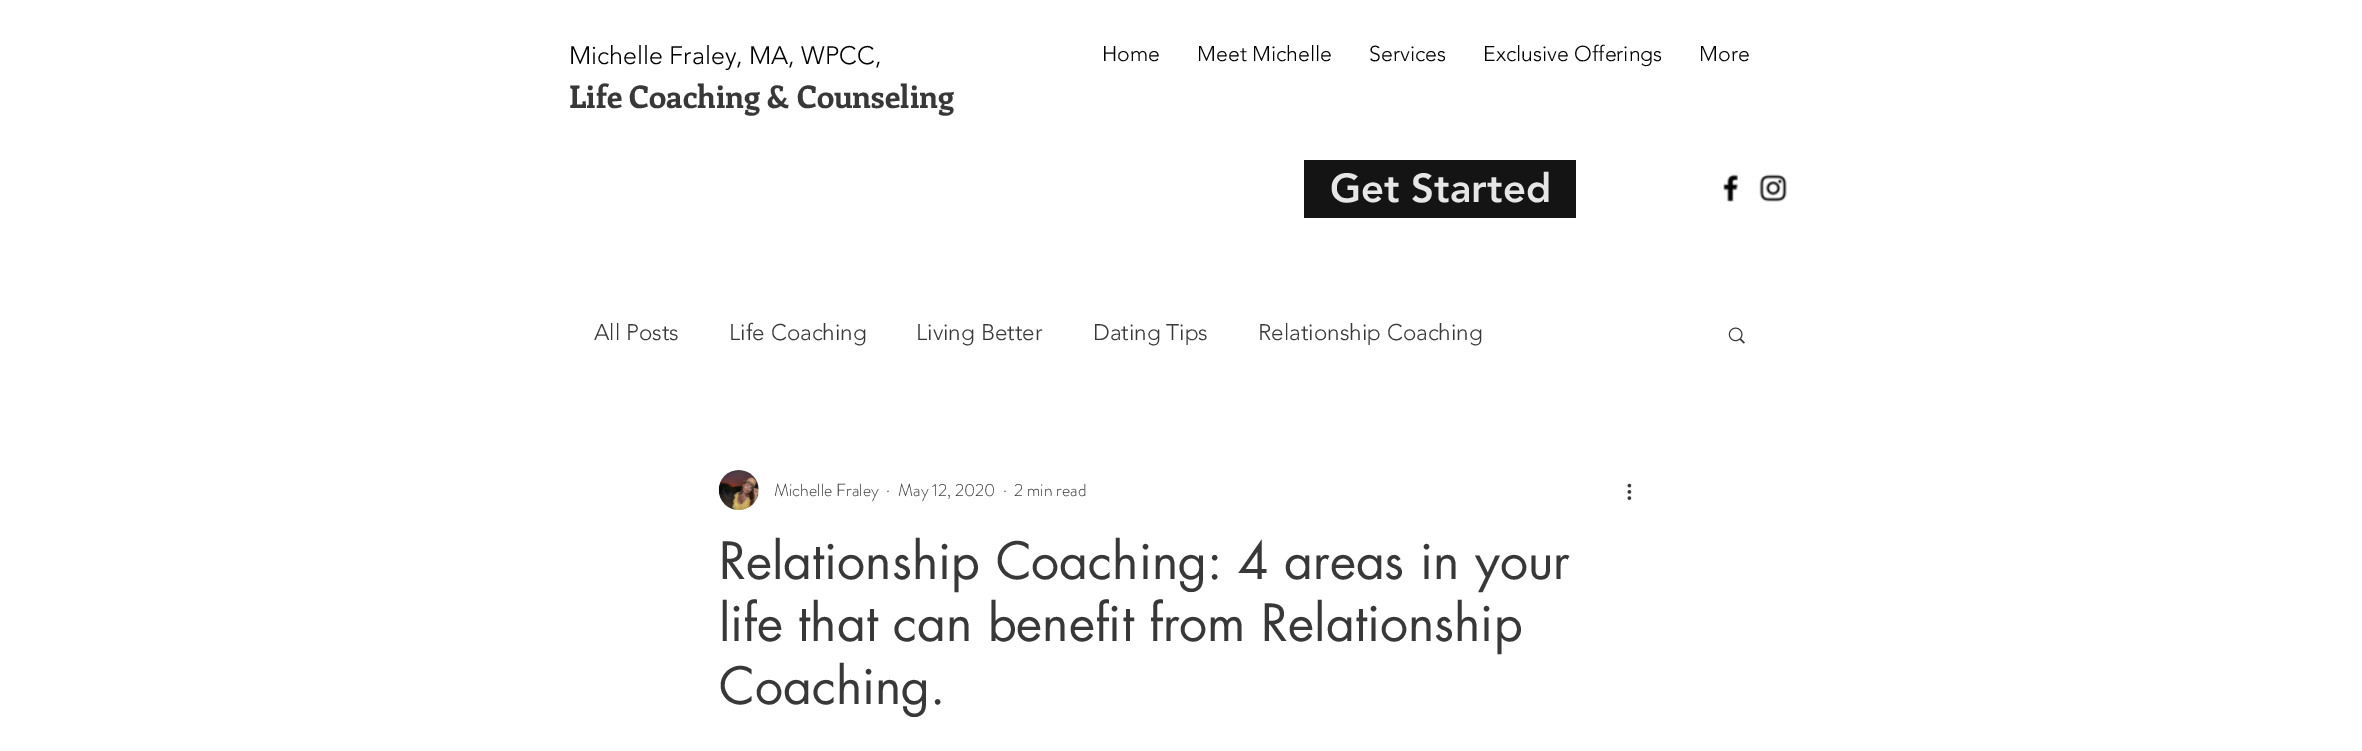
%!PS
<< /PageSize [2362 751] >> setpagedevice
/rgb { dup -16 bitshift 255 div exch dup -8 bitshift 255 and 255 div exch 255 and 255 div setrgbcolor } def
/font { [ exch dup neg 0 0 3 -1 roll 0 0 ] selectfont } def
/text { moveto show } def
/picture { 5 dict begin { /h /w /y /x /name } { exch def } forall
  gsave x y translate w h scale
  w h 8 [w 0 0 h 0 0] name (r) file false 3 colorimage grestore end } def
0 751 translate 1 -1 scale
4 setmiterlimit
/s1 { /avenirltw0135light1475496-Light 25 font 16#000000 rgb } def
/s2 { /Enriqueta-Bold 31.25 font 16#383838 rgb } def
/s3 { /avenirltw0135light1475496-Light 21.25 font 16#000000 rgb } def
/s4 { /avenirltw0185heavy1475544-Black 40 font 16#E6E6E6 rgb } def
/s5 { /avenirltw0135light1475496-Light 22.5 font 16#383838 rgb } def
/s6 { /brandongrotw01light-Light 17.5 font 16#383838 rgb } def
/s7 { /futura-Regular 50 font 16#383838 rgb } def
16#FFFFFF rgb
0 0 2362 751 rectfill
s1
(Michelle Fraley, MA, WPCC,) 569 64 text
s2
(Life Coaching & Counseling) 569 108 text
s3
(Home) 1102 61 text
(Meet Michelle) 1197 61 text
(Services) 1369 61 text
(Exclusive Offerings) 1483 61 text
(More) 1699 61 text
16#141414 rgb
1304 160 272 58 rectfill
s4
(Get Started) 1330 202 text
(pic1.raw) 1723 174 15 28 picture
(pic2.raw) 1759 174 28 28 picture
s5
(All Posts) 594 340 text
(Life Coaching) 729 340 text
(Living Better) 916 340 text
(Dating Tips) 1093 340 text
(Relationship Coaching) 1258 340 text
(pic3.raw) 1728 327 17 17 picture
(pic4.raw) 718 470 41 40 picture
s6
(Michelle Fraley) 774 496 text
(·) 886 496 text
(May 12, 2020) 898 496 text
(·) 1003 496 text
(2 min read) 1014 496 text
(pic5.raw) 1627 483 5 17 picture
s7
(Relationship Coaching: 4 areas in your) 719 579 text
(life that can benefit from Relationship) 719 641 text
(Coaching.) 719 704 text
showpage
